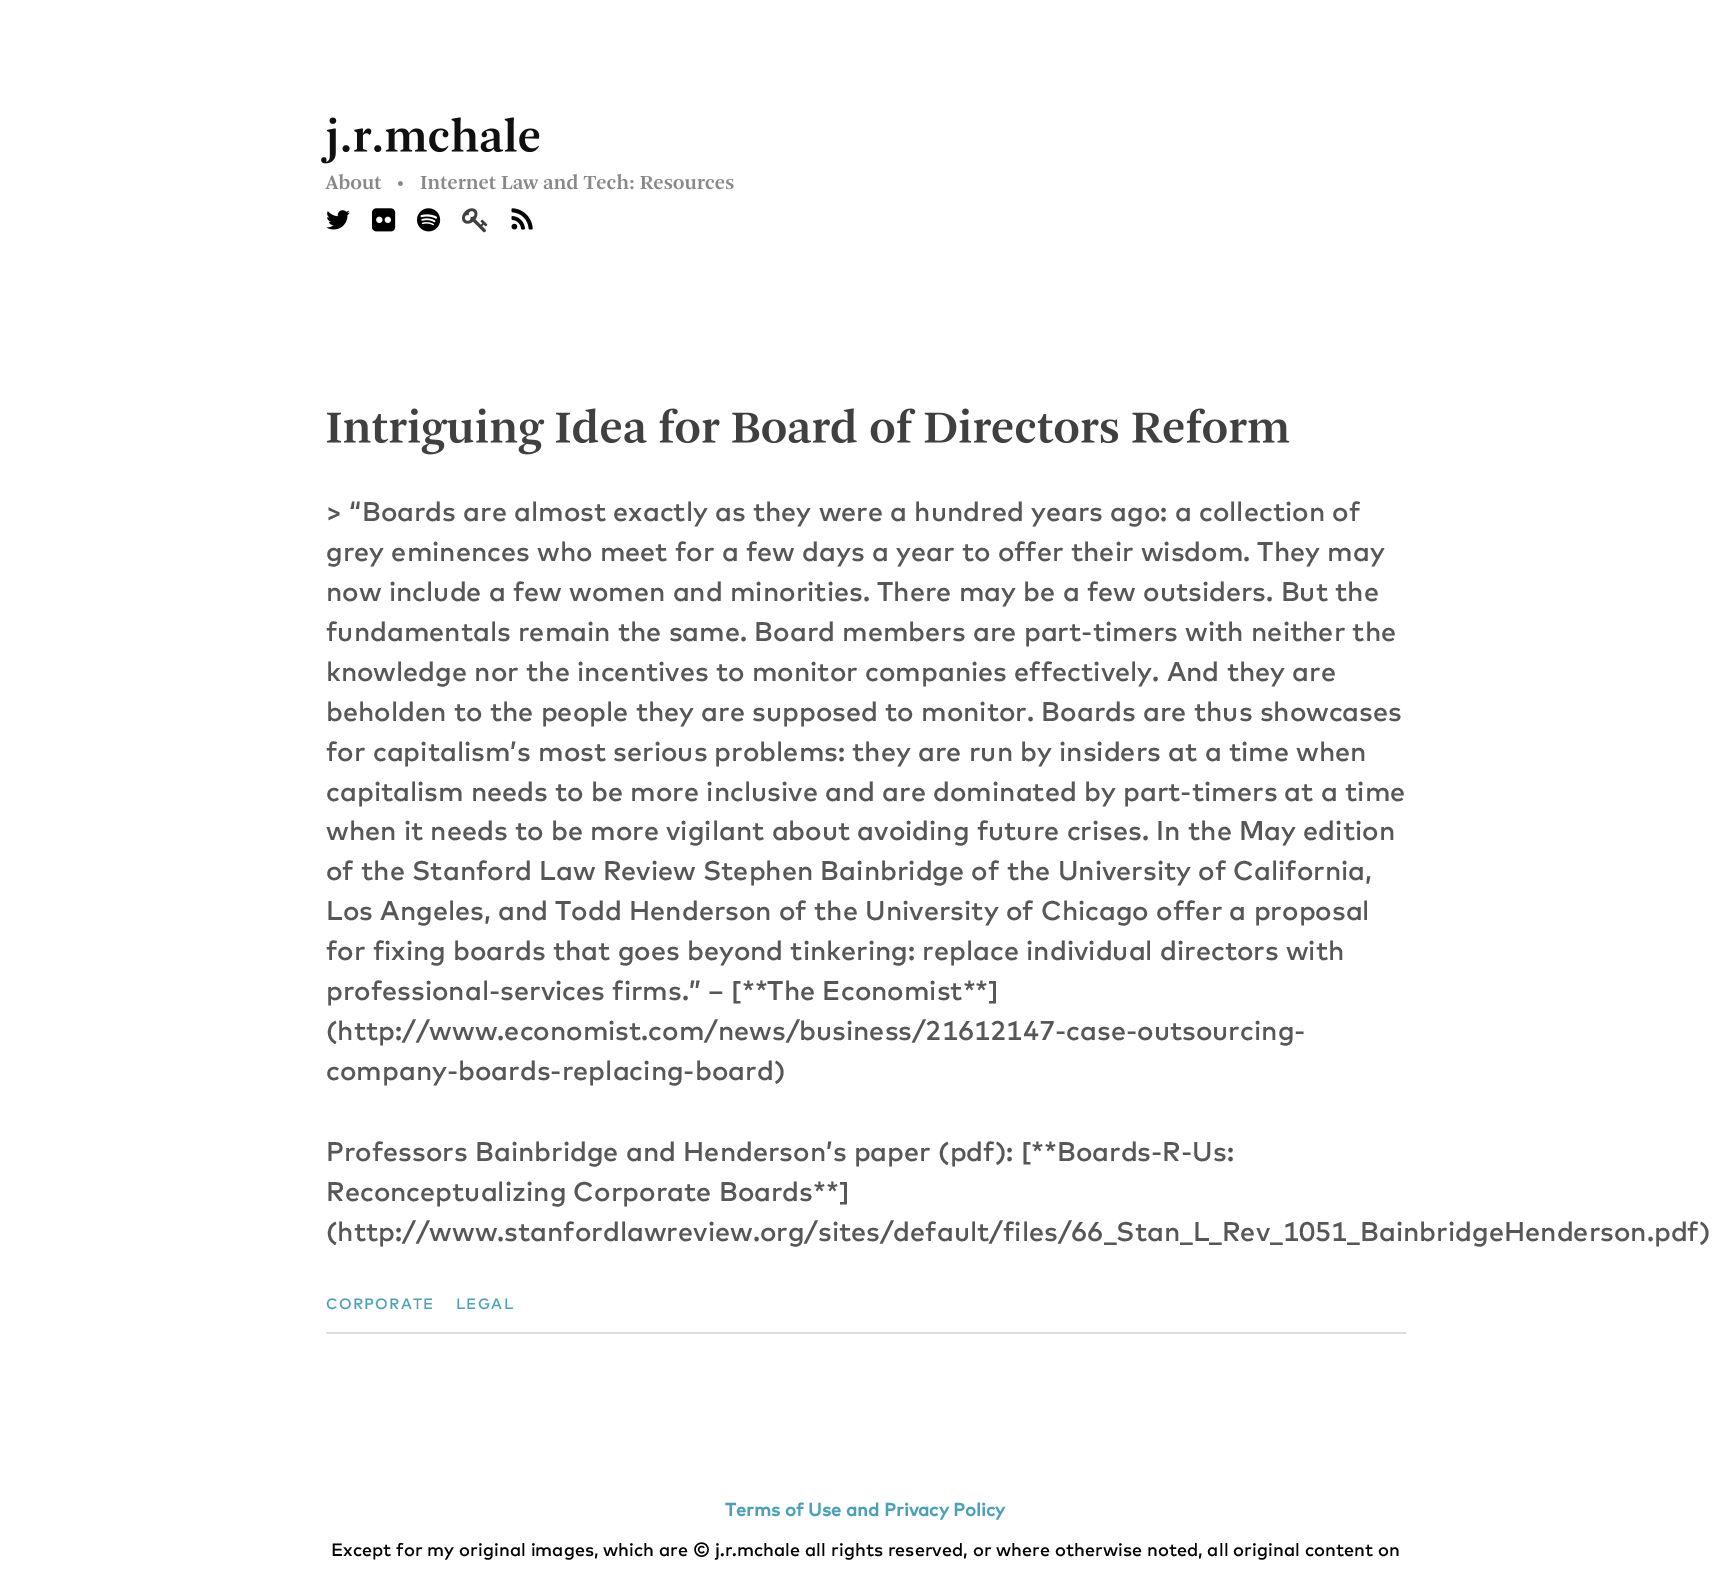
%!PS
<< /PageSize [1730 1579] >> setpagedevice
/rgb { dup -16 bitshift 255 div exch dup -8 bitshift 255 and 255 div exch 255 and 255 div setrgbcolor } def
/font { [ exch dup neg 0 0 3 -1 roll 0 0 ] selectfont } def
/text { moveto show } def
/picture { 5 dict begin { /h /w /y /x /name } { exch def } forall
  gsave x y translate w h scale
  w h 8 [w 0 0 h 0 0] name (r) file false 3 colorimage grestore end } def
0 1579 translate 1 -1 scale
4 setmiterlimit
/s1 { /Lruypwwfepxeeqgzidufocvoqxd-Medium 27 font 16#575757 rgb } def
/s2 { /Lruypwwfepxeeqgzidufocvoqxd-Bold 18 font 16#4DA1B7 rgb } def
/s3 { /Lruypwwfepxeeqgzidufocvoqxd-Medium 18 font 16#000000 rgb } def
16#FFFFFF rgb
0 0 1730 1579 rectfill
(pic1.raw) 321 117 219 47 picture
(pic2.raw) 325 174 78 16 picture
(pic3.raw) 420 174 314 16 picture
(pic4.raw) 326 210 24 20 picture
(pic5.raw) 372 208 24 24 picture
(pic6.raw) 417 208 24 24 picture
(pic7.raw) 462 208 26 25 picture
(pic8.raw) 511 208 22 22 picture
16#DDDDDD rgb
326 1332 1080 2 rectfill
(pic9.raw) 326 408 964 47 picture
s1
(> “Boards are almost exactly as they were a hundred years ago: a collection of) 326 521 text
(grey eminences who meet for a few days a year to offer their wisdom. They may) 326 561 text
(now include a few women and minorities. There may be a few outsiders. But the) 326 601 text
(fundamentals remain the same. Board members are part-timers with neither the) 326 641 text
(knowledge nor the incentives to monitor companies effectively. And they are) 326 681 text
(beholden to the people they are supposed to monitor. Boards are thus showcases) 326 721 text
(for capitalism’s most serious problems: they are run by insiders at a time when) 326 761 text
(capitalism needs to be more inclusive and are dominated by part-timers at a time) 326 801 text
(when it needs to be more vigilant about avoiding future crises. In the May edition) 326 840 text
(of the Stanford Law Review Stephen Bainbridge of the University of California,) 326 880 text
(Los Angeles, and Todd Henderson of the University of Chicago offer a proposal) 326 920 text
(for fixing boards that goes beyond tinkering: replace individual directors with) 326 960 text
(professional-services firms.” – [**The Economist**]) 326 1000 text
(\(http://www.economist.com/news/business/21612147-case-outsourcing-) 326 1040 text
(company-boards-replacing-board\)) 326 1080 text
(Professors Bainbridge and Henderson’s paper \(pdf\): [**Boards-R-Us:) 326 1161 text
(Reconceptualizing Corporate Boards**]) 326 1201 text
(\(http://www.stanfordlawreview.org/sites/default/files/66_Stan_L_Rev_1051_BainbridgeHenderson.pdf\)) 326 1241 text
/Lruypwwfepxeeqgzidufocvoqxd-Medium 15 font
16#4DA1B7 rgb
326 1309 moveto 1.25 0 (CORPORATE) ashow
456 1309 moveto 1.25 0 (LEGAL) ashow
s2
(Terms of Use and Privacy Policy) 725 1516 text
s3
(Except for my original images, which are © j.r.mchale all rights reserved, or where otherwise noted, all original content on) 331 1556 text
showpage
